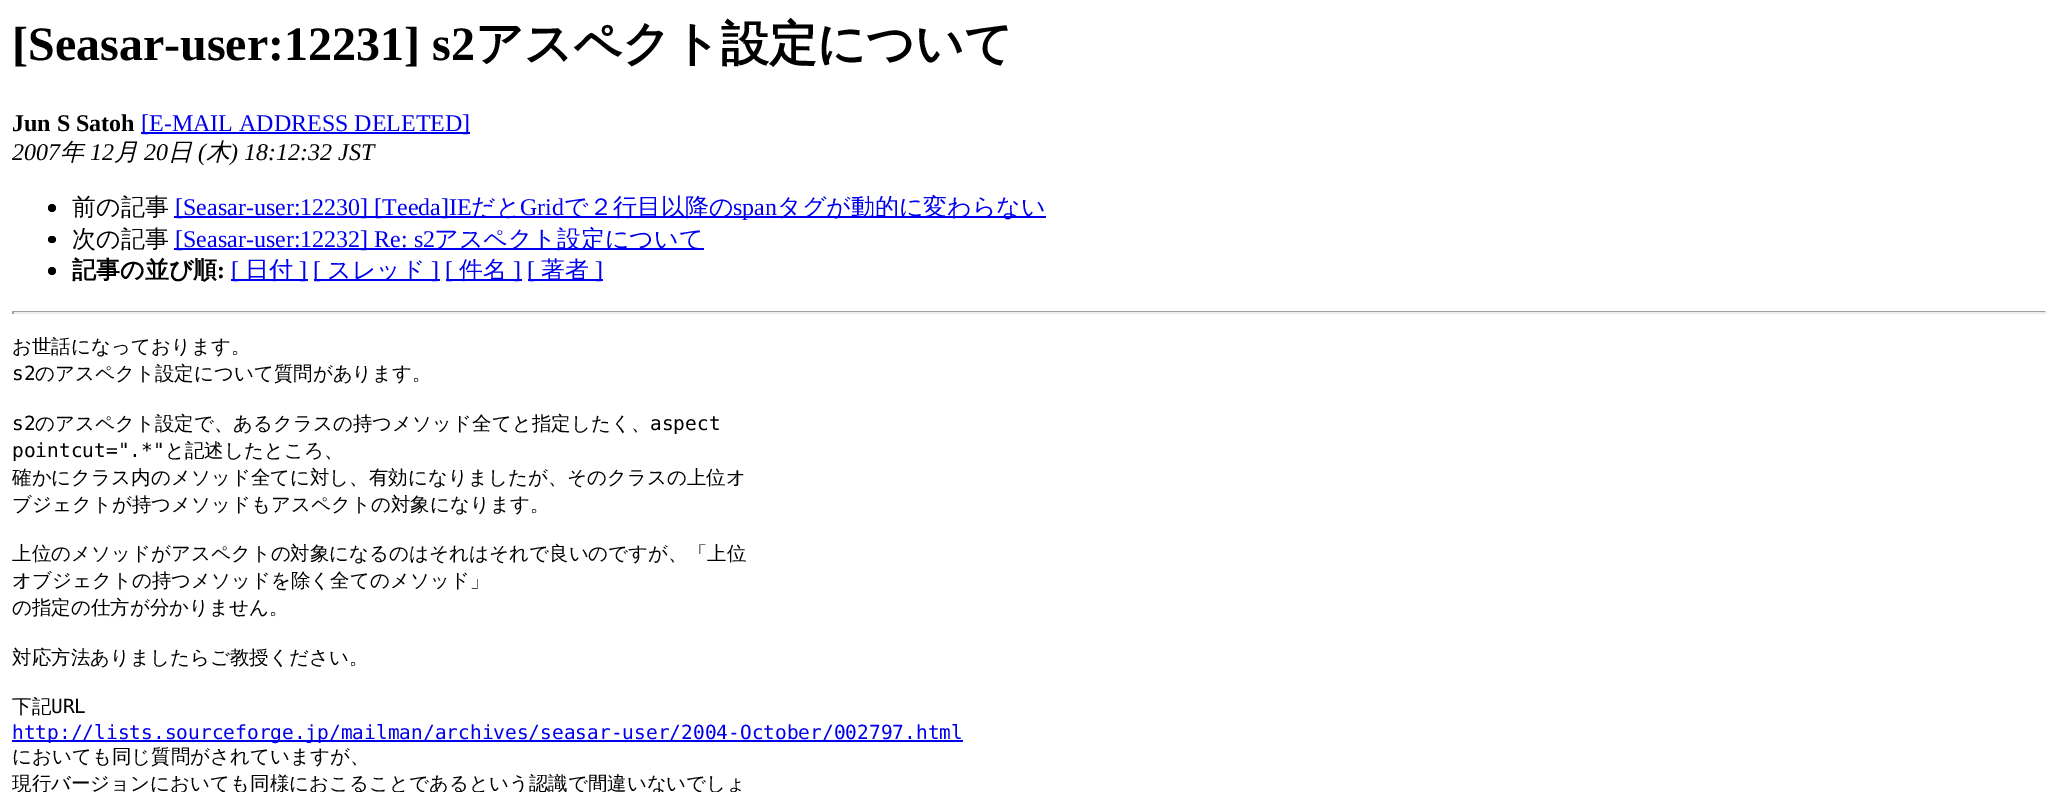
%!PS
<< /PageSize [2058 792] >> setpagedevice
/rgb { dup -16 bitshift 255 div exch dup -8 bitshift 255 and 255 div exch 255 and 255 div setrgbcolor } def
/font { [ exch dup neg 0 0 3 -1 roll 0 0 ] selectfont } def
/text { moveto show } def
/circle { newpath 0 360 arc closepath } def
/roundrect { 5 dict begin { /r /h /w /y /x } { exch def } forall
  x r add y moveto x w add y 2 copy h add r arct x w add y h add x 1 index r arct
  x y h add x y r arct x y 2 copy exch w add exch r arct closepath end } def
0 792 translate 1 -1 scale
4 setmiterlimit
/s1 { /LiberationSerif-Bold 48 font 16#000000 rgb } def
/s2 { /WenQuanYiZenHei-Bold 48 font 16#000000 rgb } def
/s3 { /LiberationSerif-Bold 24 font 16#000000 rgb } def
/s4 { /LiberationSerif-Regular 24 font 16#0000EE rgb } def
/s5 { /LiberationSerif-Italic 24 font 16#000000 rgb } def
/s6 { /WenQuanYiZenHei-MediumItalic 24 font 16#000000 rgb } def
/s7 { /WenQuanYiZenHei-Medium 24 font 16#000000 rgb } def
/s8 { /WenQuanYiZenHei-Medium 24 font 16#0000EE rgb } def
/s9 { /WenQuanYiZenHei-Bold 24 font 16#000000 rgb } def
/s10 { /WenQuanYiZenHei-Medium 19.5 font 16#000000 rgb } def
/s11 { /DejaVuSansMono-Regular 19.5 font 16#000000 rgb } def
/s12 { /DejaVuSansMono-Regular 19.5 font 16#0000EE rgb } def
16#FFFFFF rgb
0 0 2058 792 rectfill
s1
([Seasar-user:12231] s2) 12 60 text
s2
(アスペクト設定について) 475 60 text
s3
(Jun S Satoh) 12 131 text
16#0000EE rgb
141 132 329 2 rectfill
s4
([E-MAIL ADDRESS DELETED]) 141 131 text
s5
(2007) 12 160 text
s6
(年) 60 160 text
s5
(12) 90 160 text
s6
(月) 114 160 text
s5
(20) 144 160 text
s6
(日) 168 160 text
s5
(\() 198 160 text
s6
(木) 206 160 text
s5
(\) 18:12:32 JST) 230 160 text
52 208 4 circle fill
s7
(前の記事) 72 215 text
16#0000EE rgb
174 216 872 2 rectfill
s4
([Seasar-user:12230] [Teeda]IE) 175 215 text
s8
(だと) 471 215 text
s4
(Grid) 520 215 text
s8
(で２行目以降の) 564 215 text
s4
(span) 733 215 text
s8
(タグが動的に変わらない) 777 215 text
16#000000 rgb
48 236 8 7 3.5 roundrect fill
(次の記事) 72 247 text
16#0000EE rgb
174 248 530 2 rectfill
s4
([Seasar-user:12232] Re: s2) 175 247 text
s8
(アスペクト設定について) 434 247 text
16#000000 rgb
52 271 4 circle fill
s9
(記事の並び順) 72 278 text
s3
(:) 217 278 text
16#0000EE rgb
231 279 77 2 rectfill
s4
([) 231 278 text
s8
(日付) 245 278 text
s4
(]) 299 278 text
314 279 126 2 rectfill
([) 313 278 text
s8
(スレッド) 327 278 text
s4
(]) 431 278 text
446 279 76 2 rectfill
([) 445 278 text
s8
(件名) 459 278 text
s4
(]) 513 278 text
528 279 75 2 rectfill
([) 527 278 text
s8
(著者) 541 278 text
s4
(]) 595 278 text
16#9F9F9F rgb
12 311 2034 1 rectfill
16#EEEEEE rgb
2045 311 2 3 rectfill
12 312 2034 2 rectfill
16#9F9F9F rgb
12 311 2 3 rectfill
s10
(お世話になっております。) 12 353 text
s11
(s2) 12 380 text
s10
(のアスペクト設定について質問があります。) 35 380 text
s11
(s2) 12 430 text
s10
(のアスペクト設定で、あるクラスの持つメソッド全てと指定したく、) 35 430 text
s11
(aspect) 650 430 text
(pointcut=".*") 12 457 text
s10
(と記述したところ、) 165 457 text
(確かにクラス内のメソッド全てに対し、有効になりましたが、そのクラスの上位オ) 12 484 text
(ブジェクトが持つメソッドもアスペクトの対象になります。) 12 511 text
(上位のメソッドがアスペクトの対象になるのはそれはそれで良いのですが、「上位) 12 560 text
(オブジェクトの持つメソッドを除く全てのメソッド」) 12 587 text
(の指定の仕方が分かりません。) 12 614 text
(対応方法ありましたらご教授ください。) 12 664 text
(下記) 12 713 text
s11
(URL) 51 713 text
16#0000EE rgb
12 740 951 2 rectfill
(http://lists.sourceforge.jp/mailman/archives/seasar-user/2004-October/002797.html) 12 739 text
s10
(においても同じ質問がされていますが、) 12 763 text
(現行バージョンにおいても同様におこることであるという認識で間違いないでしょ) 12 790 text
showpage
